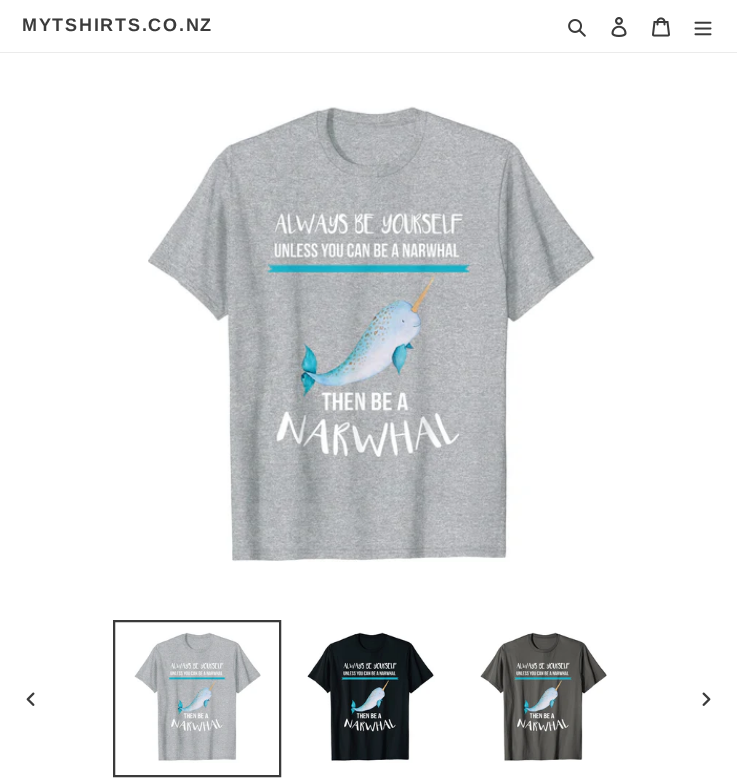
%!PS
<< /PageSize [737 784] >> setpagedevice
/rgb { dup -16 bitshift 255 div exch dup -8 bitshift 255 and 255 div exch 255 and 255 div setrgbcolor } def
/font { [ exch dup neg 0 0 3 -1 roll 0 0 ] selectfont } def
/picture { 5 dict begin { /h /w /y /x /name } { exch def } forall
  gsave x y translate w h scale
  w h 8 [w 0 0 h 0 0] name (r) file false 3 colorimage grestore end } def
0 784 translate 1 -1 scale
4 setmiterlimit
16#FFFFFF rgb
0 0 737 784 rectfill
16#EBEBEB rgb
0 52 737 1 rectfill
/LiberationSans-Bold 18 font
16#3A3A3A rgb
22 31 moveto 1.75 0 (MYTSHIRTS.CO.NZ) ashow
(pic1.raw) 568 19 18 18 picture
(pic2.raw) 611 17 16 20 picture
(pic3.raw) 652 17 18 20 picture
(pic4.raw) 694 21 18 15 picture
(pic5.raw) 148 106 447 456 picture
(pic6.raw) 26 692 9 14 picture
2 setlinewidth
114 621 166 155 rectstroke
(pic7.raw) 134 632 127 131 picture
(pic8.raw) 307 632 128 131 picture
(pic9.raw) 480 632 127 130 picture
(pic10.raw) 702 692 9 14 picture
showpage
